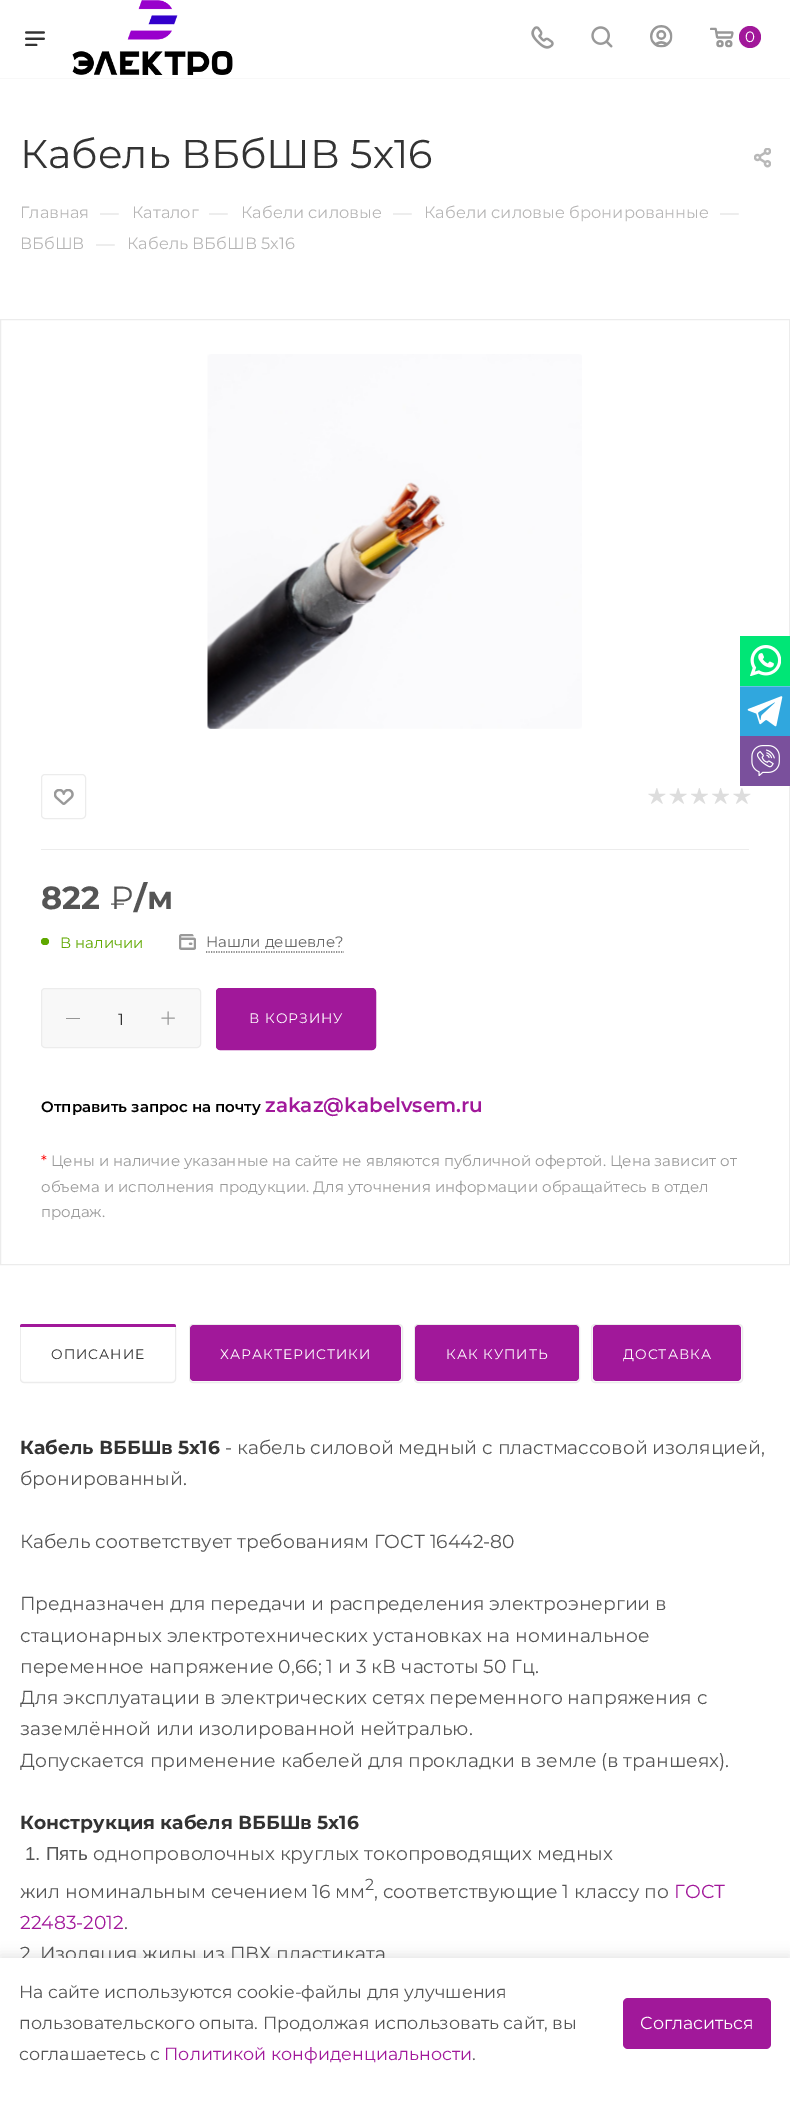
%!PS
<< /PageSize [790 2119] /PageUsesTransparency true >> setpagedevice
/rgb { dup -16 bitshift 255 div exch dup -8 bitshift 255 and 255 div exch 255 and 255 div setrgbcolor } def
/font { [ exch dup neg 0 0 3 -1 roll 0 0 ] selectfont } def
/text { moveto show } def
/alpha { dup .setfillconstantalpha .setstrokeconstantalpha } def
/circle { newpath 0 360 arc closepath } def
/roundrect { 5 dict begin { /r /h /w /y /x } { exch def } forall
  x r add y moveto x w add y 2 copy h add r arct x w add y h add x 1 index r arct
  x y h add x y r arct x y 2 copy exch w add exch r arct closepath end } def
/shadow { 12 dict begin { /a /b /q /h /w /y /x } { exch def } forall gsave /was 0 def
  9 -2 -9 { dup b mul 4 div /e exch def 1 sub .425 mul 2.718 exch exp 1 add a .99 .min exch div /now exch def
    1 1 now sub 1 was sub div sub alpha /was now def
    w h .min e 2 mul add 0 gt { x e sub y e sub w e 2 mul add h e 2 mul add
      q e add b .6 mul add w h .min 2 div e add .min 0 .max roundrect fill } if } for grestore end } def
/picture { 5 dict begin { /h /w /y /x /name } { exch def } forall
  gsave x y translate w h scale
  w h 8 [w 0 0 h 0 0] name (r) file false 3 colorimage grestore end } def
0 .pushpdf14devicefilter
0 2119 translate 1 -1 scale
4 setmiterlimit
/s1 { /Montserrat-Regular 15 font 16#FFFFFF rgb } def
/s2 { /Montserrat-Regular 40 font 16#333333 rgb } def
/s3 { /Montserrat-Regular 16.25 font 16#B6B5B5 rgb } def
/s4 { /Montserrat-Regular 18.75 font 16#DDDDDD rgb } def
/s5 { /Montserrat-Bold 32 font 16#555555 rgb } def
/s6 { /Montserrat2-Regular 32 font 16#555555 rgb } def
/s7 { /Montserrat-Regular 15 font 16#5FA800 rgb } def
/s8 { /Montserrat-Regular 15 font 16#666666 rgb } def
/s9 { /Montserrat-Regular 16 font 16#333333 rgb } def
/s10 { /Montserrat-SemiBold 15 font 16#000000 rgb } def
/s11 { /Montserrat-SemiBold 20 font 16#A1189A rgb } def
/s12 { /Montserrat-Regular 15 font 16#FF0000 rgb } def
/s13 { /Montserrat-Regular 15 font 16#999999 rgb } def
/s14 { /Montserrat-Bold 18.75 font 16#333333 rgb } def
/s15 { /Montserrat-Regular 18.75 font 16#555555 rgb } def
/s16 { /LiberationSans-Regular 18.75 font 16#555555 rgb } def
/s17 { /Montserrat-Regular 16 font 16#555555 rgb } def
/s18 { /Montserrat-Regular 18.75 font 16#A1189A rgb } def
/s19 { /Montserrat-Regular 17.5 font 16#555555 rgb } def
/s20 { /Montserrat-Regular 17.5 font 16#A1189A rgb } def
/s21 { /Montserrat-Regular 17.5 font 16#FFFFFF rgb } def
16#FFFFFF rgb
0 0 790 2119 rectfill
16#F8F8F8 rgb
0 78 790 1 rectfill
(pic1.raw) 25 31 20 15 picture
(pic2.raw) 72 0 161 75 picture
(pic3.raw) 531 26 23 23 picture
(pic4.raw) 591 26 22 22 picture
(pic5.raw) 650 25 23 23 picture
(pic6.raw) 710 27 24 21 picture
16#A1189A rgb
750 37 11 circle fill
s1
(0) 745 42 text
s2
(Кабель ВБбШВ 5х16) 20 168 text
(pic7.raw) 754 148 17 20 picture
s3
(Главная) 20 218 text
s4
(—) 100 219 text
s3
(Каталог) 132 218 text
s4
(—) 209 219 text
s3
(Кабели силовые) 241 218 text
s4
(—) 393 219 text
s3
(Кабели силовые бронированные) 424 218 text
s4
(—) 720 219 text
s3
(ВБбШВ) 20 249 text
s4
(—) 96 250 text
s3
(Кабель ВБбШВ 5х16) 127 249 text
16#ECECEC rgb
0.5 319.5 789 945 rectstroke
(pic8.raw) 207 354 375 375 picture
41.5 774.5 44 44 3.5 roundrect stroke
(pic9.raw) 54 789 20 16 picture
(pic10.raw) 648 788 18 16 picture
(pic11.raw) 669 788 18 16 picture
(pic12.raw) 691 788 17 16 picture
(pic13.raw) 712 788 17 16 picture
(pic10.raw) 733 788 18 16 picture
41 849 708 1 rectfill
s5
(822) 41 909 text
s6
(₽) 110 909 text
s5
(/м) 134 909 text
16#5FA800 rgb
41 938 8 7 3.5 roundrect fill
s7
(В наличии) 60 948 text
(pic14.raw) 179 934 17 16 picture
s8
(Нашли дешевле?) 206 947 text
1.2 setlinewidth
[1.25 1.25] 0 setdash
206 952 moveto 344 952 lineto stroke
16#F8F8F8 rgb
41.5 988.5 159 59 3.5 roundrect gsave fill grestore
16#ECECEC rgb
1 setlinewidth
[] 0 setdash
stroke
16#969696 rgb
66 1018 14 1 0.5 roundrect fill
s9
(1) 118 1025 text
(pic15.raw) 161 1011 14 14 picture
16#A1189A rgb
216.5 988.5 159 61 3.5 roundrect gsave fill grestore
stroke
/Montserrat-Regular 13.75 font
16#FFFFFF rgb
249 1023 moveto 1 0 (В КОРЗИНУ) ashow
s10
(Отправить запрос на почту) 41 1112 text
s11
(zakaz@kabelvsem.ru) 265 1112 text
s12
(*) 41 1166 text
s13
(Цены и наличие указанные на сайте не являются публичной офертой. Цена зависит от) 51 1166 text
(объема и исполнения продукции. Для уточнения информации обращайтесь в отдел) 41 1192 text
(продаж.) 41 1217 text
16#FAFAFA rgb
20.5 1324.5 155 58 3.5 roundrect gsave fill grestore
16#ECECEC rgb
stroke
16#FFFFFF rgb
21 1325 154 56 4 roundrect fill
16#A1189A rgb
22.5 1324 moveto 173.5 1324 lineto 175 1324 176 1325 176 1326.5 curveto 176 1327 lineto 20 1327 lineto 20 1326.5 lineto 20 1325 21 1324 22.5 1324 curveto closepath fill
/Montserrat-Regular 13.75 font
16#333333 rgb
51 1359 moveto 1 0 (ОПИСАНИЕ) ashow
16#FAFAFA rgb
189.5 1324.5 213 58 3.5 roundrect gsave fill grestore
16#ECECEC rgb
stroke
16#A1189A rgb
190 1325 211 56 4 roundrect fill
16#FFFFFF rgb
220 1359 moveto 1 0 (ХАРАКТЕРИСТИКИ) ashow
16#FAFAFA rgb
414.5 1324.5 165 58 3.5 roundrect gsave fill grestore
16#ECECEC rgb
stroke
16#A1189A rgb
415 1325 164 56 4 roundrect fill
16#FFFFFF rgb
446 1359 moveto 1 0 (КАК КУПИТЬ) ashow
16#FAFAFA rgb
591.5 1324.5 151 58 3.5 roundrect gsave fill grestore
16#ECECEC rgb
stroke
16#A1189A rgb
593 1325 148 56 4 roundrect fill
16#FFFFFF rgb
623 1359 moveto 1 0 (ДОСТАВКА) ashow
s14
(Кабель ВББШв 5х16) 20 1454 text
s15
(- кабель силовой медный с пластмассовой изоляцией,) 225 1454 text
(бронированный.) 20 1485 text
(Кабель соответствует требованиям ГОСТ 16442-80) 20 1548 text
(Предназначен для передачи и распределения электроэнергии в) 20 1610 text
(стационарных электротехнических установках на номинальное) 20 1642 text
(переменное напряжение 0,66; 1 и 3 кВ частоты 50 Гц.) 20 1673 text
(Для эксплуатации в электрических сетях переменного напряжения с) 20 1704 text
(заземлённой или изолированной нейтралью.) 20 1735 text
(Допускается применение кабелей для прокладки в земле \(в траншеях\).) 20 1767 text
s14
(Конструкция кабеля ВББШв 5х16) 20 1829 text
s16
(1. Пять) 25 1860 text
s15
(однопроволочных круглых токопроводящих медных) 93 1860 text
(жил номинальным сечением 16 мм) 20 1898 text
s17
(2) 365 1890 text
s15
(, соответствующие 1 классу по) 374 1898 text
s18
(ГОСТ) 674 1898 text
(22483-2012) 20 1929 text
s15
(.) 124 1929 text
(2. Изоляция жилы из ПВХ пластиката) 20 1960 text
16#00E676 rgb
740 636 50 50 rectfill
(pic16.raw) 750 645 31 31 picture
16#FFFFFF rgb
789 686 1 41 rectfill
(pic17.raw) 740 686 50 50 picture
16#7A509C rgb
740 736 50 50 rectfill
(pic18.raw) 751 745 29 31 picture
16#000000 rgb
0 1955 790 163 0 6 0.1 shadow
16#FFFFFF rgb
0 1958 790 161 rectfill
s19
(На сайте используются cookie-файлы для улучшения) 19 1998 text
(пользовательского опыта. Продолжая использовать сайт, вы) 19 2029 text
(соглашаетесь с) 19 2060 text
s20
(Политикой конфиденциальности) 164 2060 text
s19
(.) 472 2060 text
16#A1189A rgb
623 1998 148 51 5 roundrect fill
s21
(Согласиться) 640 2029 text
.poppdf14devicefilter showpage
